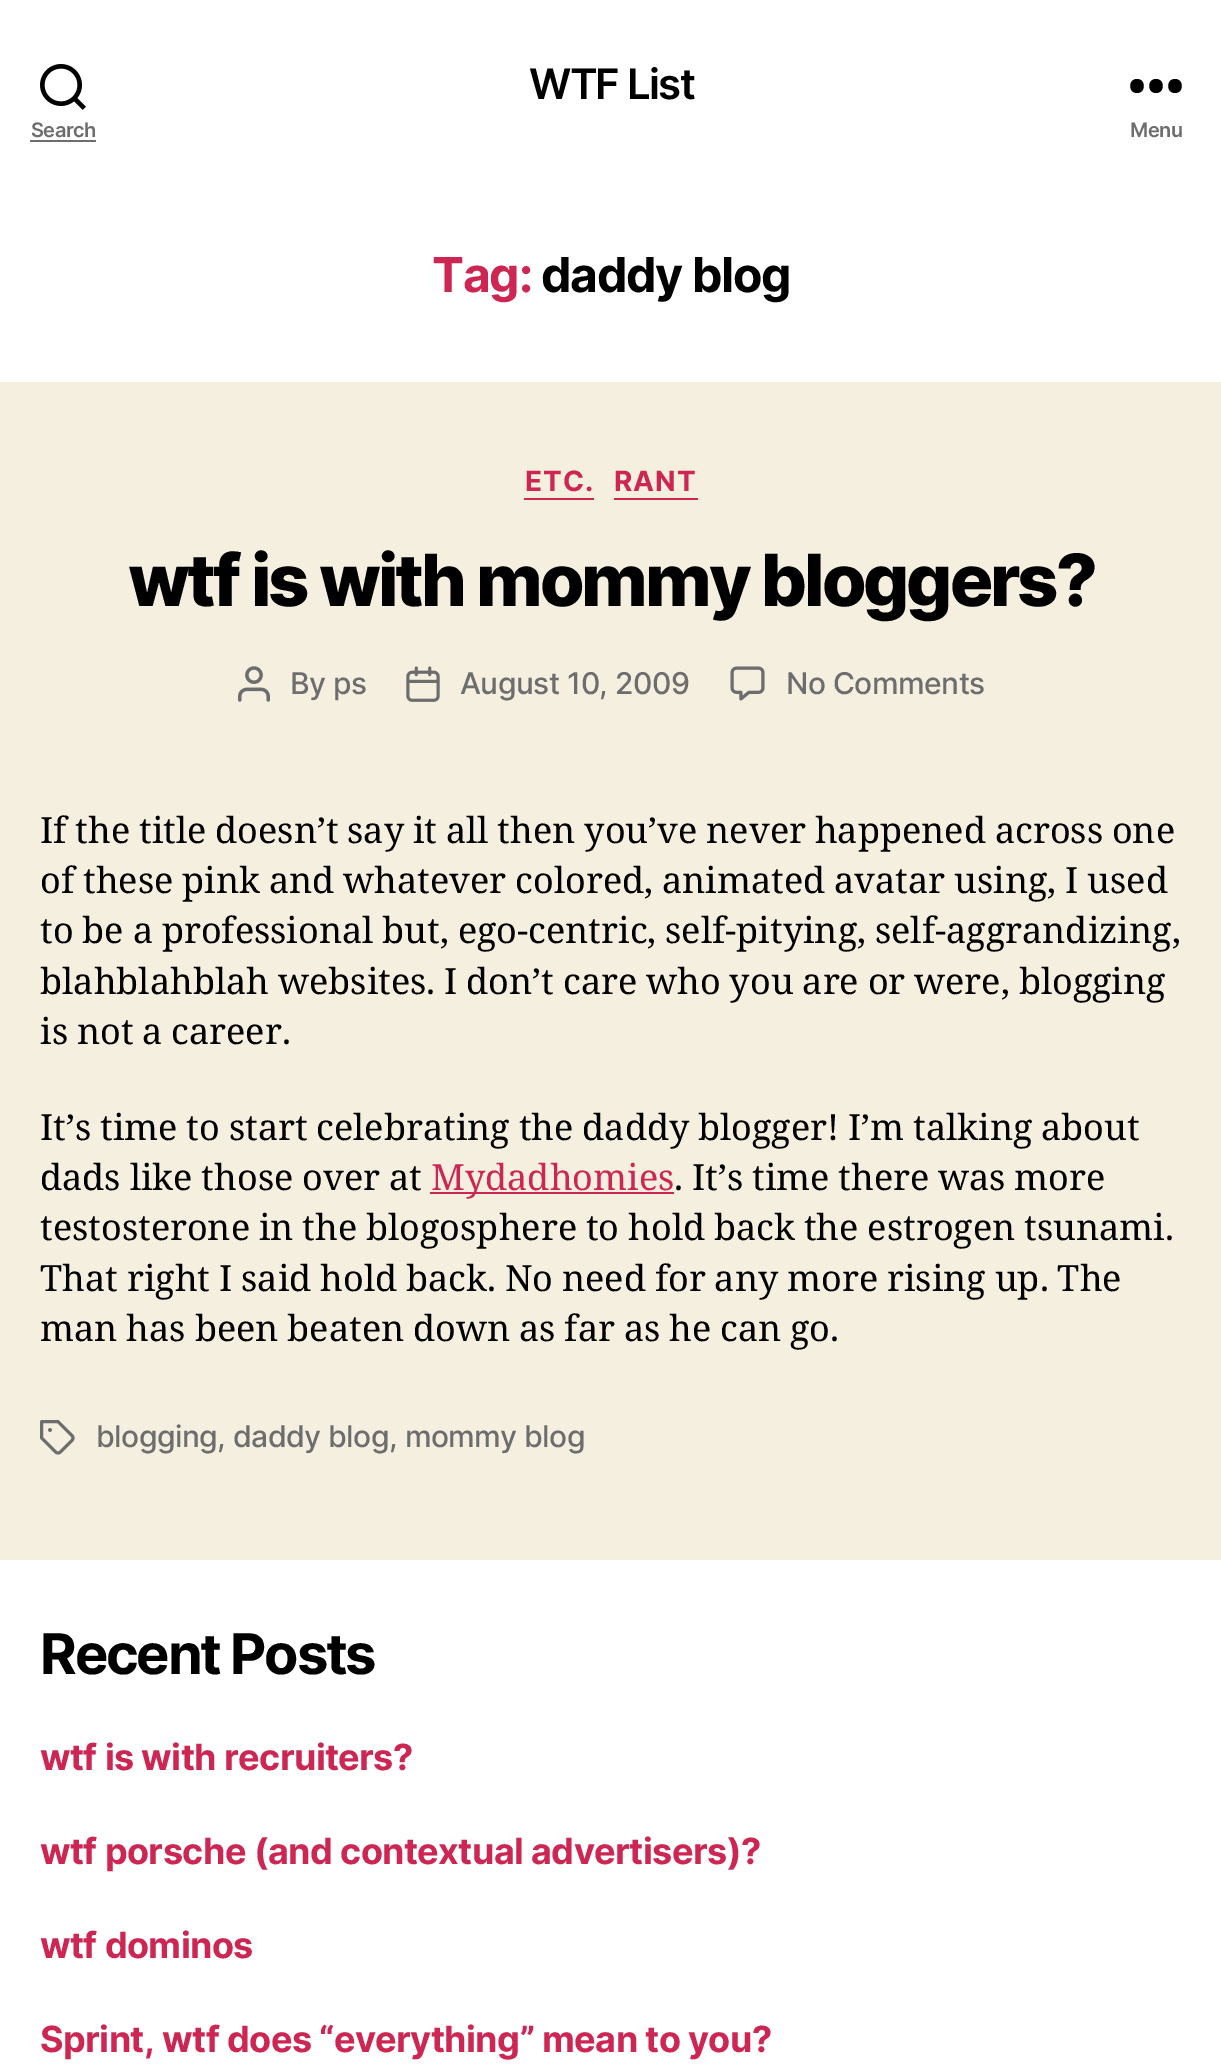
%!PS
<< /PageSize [1221 2064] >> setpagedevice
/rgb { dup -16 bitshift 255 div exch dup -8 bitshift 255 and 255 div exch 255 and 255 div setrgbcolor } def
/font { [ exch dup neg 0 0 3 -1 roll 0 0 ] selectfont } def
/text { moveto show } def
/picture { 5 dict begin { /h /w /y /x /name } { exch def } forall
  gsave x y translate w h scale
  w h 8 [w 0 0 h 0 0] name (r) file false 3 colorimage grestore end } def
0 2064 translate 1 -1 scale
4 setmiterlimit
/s1 { /NotoSerif-Regular 36 font 16#CD2653 rgb } def
16#F5EFE0 rgb
0 0 1221 2064 rectfill
16#FFFFFF rgb
0 0 1221 382 rectfill
/Inter-SemiBold 42 font
16#000000 rgb
529 99 moveto -1.75 0 (WTF List) ashow
(pic1.raw) 40 64 46 46 picture
/Inter-SemiBold 20 font
16#6D6D6D rgb
31 137 moveto -0.55 0 (Search) ashow
30 140 66 2 rectfill
16#000000 rgb
1137 93 moveto 1128 93 1128 79 1137 79 curveto 1146 79 1146 93 1137 93 curveto closepath 1156 93 moveto 1147 93 1147 79 1156 79 curveto 1165 79 1165 93 1156 93 curveto closepath 1175 93 moveto 1166 93 1166 79 1175 79 curveto 1184 79 1184 93 1175 93 curveto closepath eofill
16#6D6D6D rgb
1130 137 moveto -0.55 0 (Menu) ashow
/Inter-Bold 48 font
16#CD2653 rgb
432 292 moveto -1.25 0 (Tag:) ashow
16#000000 rgb
541 292 moveto -1.25 0 (daddy blog) ashow
16#CD2653 rgb
524 498 70 2 rectfill
/Inter-Bold 28 font
525 491 moveto 1 0 (ETC.) ashow
614 498 84 2 rectfill
614 491 moveto 1 0 (RANT) ashow
/Inter-ExtraBold 72 font
16#000000 rgb
128 606 moveto -3 0 (wtf is with mommy bloggers?) ashow
(pic2.raw) 238 666 32 36 picture
/Inter-Medium 30 font
16#6D6D6D rgb
290 694 moveto -0.5 0 (By ps) ashow
(pic3.raw) 406 666 34 36 picture
460 694 moveto -0.5 0 (August 10, 2009) ashow
(pic4.raw) 730 666 35 35 picture
786 694 moveto -0.5 0 (No Comments) ashow
/NotoSerif-Regular 36 font
16#000000 rgb
40 843 moveto -0.5 0 32 (If the title doesn’t say it all then you’ve never happened across one) widthshow
40 893 moveto -0.5 0 32 (of these pink and whatever colored, animated avatar using, I used) widthshow
40 943 moveto -0.5 0 32 (to be a professional but, ego-centric, self-pitying, self-aggrandizing,) widthshow
40 994 moveto -0.5 0 32 (blahblahblah websites. I don’t care who you are or were, blogging) widthshow
40 1044 moveto -0.5 0 32 (is not a career.) widthshow
40 1140 moveto -0.5 0 32 (It’s time to start celebrating the daddy blogger! I’m talking about) widthshow
40 1190 moveto -0.5 0 32 (dads like those over at) widthshow
16#CD2653 rgb
430 1192 244 2 rectfill
(Mydadhomies) 431 1190 text
16#000000 rgb
674 1190 moveto -0.5 0 32 (. It’s time there was more) widthshow
40 1240 moveto -0.5 0 32 (testosterone in the blogosphere to hold back the estrogen tsunami.) widthshow
40 1291 moveto -0.5 0 32 (That right I said hold back. No need for any more rising up. The) widthshow
40 1341 moveto -0.5 0 32 (man has been beaten down as far as he can go.) widthshow
(pic5.raw) 40 1420 35 35 picture
/Inter-Medium 30 font
16#6D6D6D rgb
96 1447 moveto -0.5 0 (blogging, daddy blog, mommy blog) ashow
16#FFFFFF rgb
0 1560 1221 504 rectfill
/Inter-Bold 56 font
16#000000 rgb
40 1674 moveto -2.25 0 (Recent Posts) ashow
/Inter-Bold 36 font
16#CD2653 rgb
40 1770 moveto -0.55 0 (wtf is with recruiters?) ashow
40 1864 moveto -0.55 0 (wtf porsche \(and contextual advertisers\)?) ashow
40 1958 moveto -0.55 0 (wtf dominos) ashow
40 2052 moveto -0.55 0 (Sprint, wtf does “everything” mean to you?) ashow
showpage
